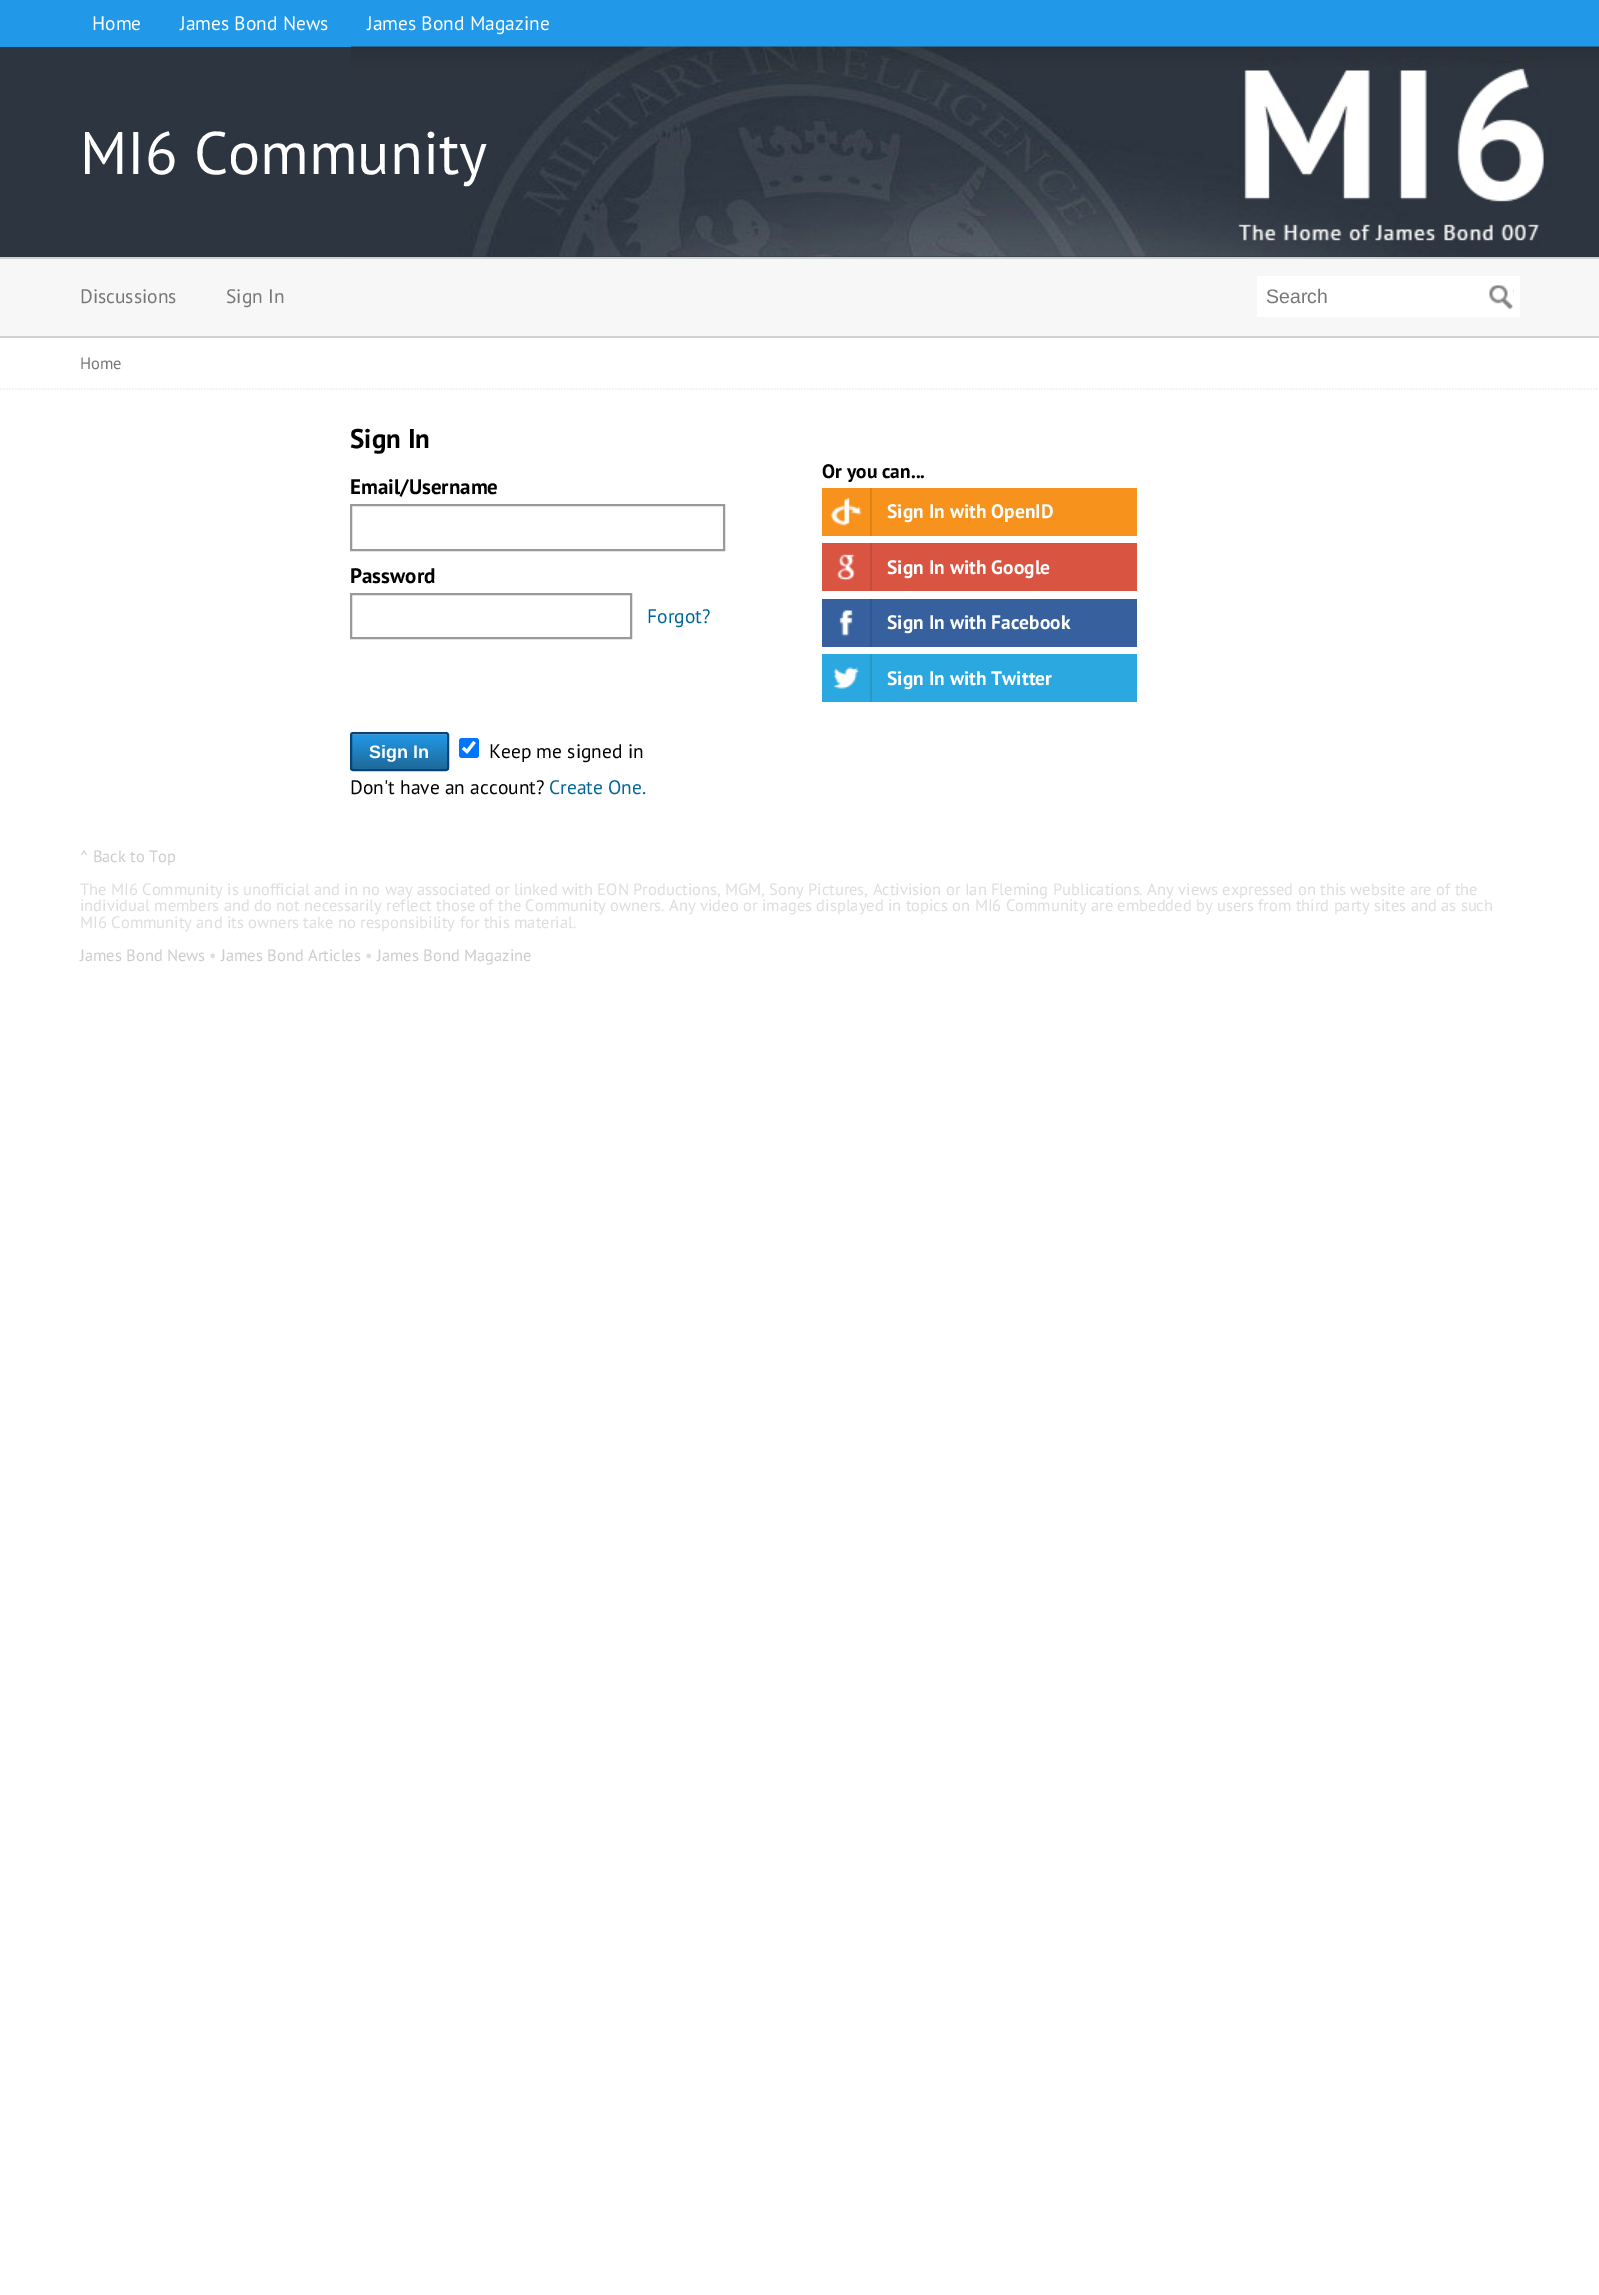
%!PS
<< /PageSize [1599 2295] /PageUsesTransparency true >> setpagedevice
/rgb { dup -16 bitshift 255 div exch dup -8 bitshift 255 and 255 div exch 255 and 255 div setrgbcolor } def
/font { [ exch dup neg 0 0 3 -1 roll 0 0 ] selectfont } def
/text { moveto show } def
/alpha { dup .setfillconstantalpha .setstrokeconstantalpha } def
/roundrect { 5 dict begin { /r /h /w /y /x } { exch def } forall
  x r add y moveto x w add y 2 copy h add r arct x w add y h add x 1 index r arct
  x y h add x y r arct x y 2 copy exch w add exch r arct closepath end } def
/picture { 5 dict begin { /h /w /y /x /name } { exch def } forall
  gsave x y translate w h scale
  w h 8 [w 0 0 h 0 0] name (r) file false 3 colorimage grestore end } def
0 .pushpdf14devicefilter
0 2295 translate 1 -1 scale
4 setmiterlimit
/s1 { /PTSans-Regular 19.5 font 16#FFFFFF rgb } def
/s2 { /PTSans-Regular 60 font 16#FFFFFF rgb } def
/s3 { /PTSans-Regular 19.5 font 16#777777 rgb } def
/s4 { /LiberationSans-Regular 19.5 font 16#777777 rgb } def
/s5 { /PTSans-Regular 16.5 font 16#777777 rgb } def
/s6 { /PTSans-Bold 27 font 16#000000 rgb } def
/s7 { /PTSans-Bold 21 font 16#000000 rgb } def
/s8 { /PTSans-Regular 19.5 font 16#006699 rgb } def
/s9 { /PTSans-Bold 19.5 font 16#000000 rgb } def
/s10 { /PTSans-Bold 19.5 font 16#FFFFFF rgb } def
/s11 { /LiberationSans-Bold 18 font 16#FFFFFF rgb } def
/s12 { /PTSans-Regular 19.5 font 16#000000 rgb } def
/s13 { /PTSans-Regular 16.5 font 16#CCCCCC rgb } def
/s14 { /PTSans-Regular 16.5 font 16#DDDDDD rgb } def
16#FFFFFF rgb
0 0 1599 2295 rectfill
16#2199E8 rgb
0 0 1599 47 rectfill
s1
(Home) 92 30 text
(James Bond News) 180 30 text
(James Bond Magazine) 367 30 text
16#2D3540 rgb
0 47 1599 210 rectfill
(pic1.raw) 351 46 1248 211 picture
s2
(MI6 Community) 80 174 text
16#F7F7F7 rgb
0 259 1599 77 rectfill
16#D0D0D0 rgb
0 257 1599 2 rectfill
0 336 1599 2 rectfill
s3
(Discussions) 80 303 text
(Sign In) 226 303 text
16#FFFFFF rgb
1257 276 263 41 rectfill
s4
(Search) 1266 303 text
(pic2.raw) 1489 285 25 24 picture
0.3 alpha
16#FFFFFF rgb
1492 286 moveto 1508 286 lineto 1512 286 1513.5 287 1514 289.5 curveto 1514 288 lineto 1514 286.5 1512.5 285 1511 285 curveto 1493 285 lineto 1491.5 285 1490.5 286 1490 287.5 curveto 1490.5 286.5 1491 286 1492 286 curveto closepath fill
1 alpha
16#EEEEEE rgb
1.5 setlinewidth
[1.5 1.5] 0 setdash
0 389 moveto 1599 389 lineto stroke
s5
(Home) 80 369 text
s6
(Sign In) 350 448 text
s7
(Email/Username) 350 494 text
16#999999 rgb
2 setlinewidth
[] 0 setdash
351 505 373 45 rectstroke
s7
(Password) 350 583 text
16#999999 rgb
351 594 280 44 rectstroke
s8
(Forgot?) 647 623 text
s9
(Or you can...) 822 478 text
16#F7921C rgb
822 488 315 48 rectfill
(pic3.raw) 830 497 32 29 picture
16#DE8319 rgb
870 488 2 48 rectfill
s10
(Sign In with OpenID) 887 518 text
16#DA5442 rgb
822 543 315 48 rectfill
(pic4.raw) 836 554 20 27 picture
16#C44C3B rgb
870 543 2 48 rectfill
s10
(Sign In with Google) 887 574 text
16#36609E rgb
822 599 315 48 rectfill
(pic5.raw) 839 610 14 27 picture
16#31568E rgb
870 599 2 48 rectfill
s10
(Sign In with Facebook) 887 629 text
16#2AA8DF rgb
822 654 315 48 rectfill
(pic6.raw) 833 667 27 22 picture
16#2697C9 rgb
870 654 2 48 rectfill
s10
(Sign In with Twitter) 887 685 text
gsave
350 732 99 39 3 roundrect clip newpath
gsave 350 734 moveto 449 734 lineto 449 770 lineto 350 770 lineto closepath clip newpath
<< /ShadingType 2 /ColorSpace /DeviceRGB /Coords [399 734 399 770] /Extend [true true] /Function << /FunctionType 2 /Domain [0 1] /C0 [0.129 0.6 0.91] /C1 [0.118 0.408 0.588] /N 1 >> >> shfill grestore
grestore
16#64B7EE rgb
352 735 moveto 446 735 lineto 447 736 lineto 447 735 447 734 446 734 curveto 352 734 lineto 351 734 351 735 351 736 curveto closepath fill
16#074376 rgb
351 733 97 37 2 roundrect stroke
s11
(Sign In) 369 758 text
16#0075FF rgb
459 738 20 20 3 roundrect fill
16#FFFFFF rgb
3.1 setlinewidth
463 748 moveto 467 751.5 lineto 474.5 742 lineto stroke
s12
(Keep me signed in) 489 758 text
(Don't have an account?) 350 794 text
s8
(Create One.) 549 794 text
s13
(^ Back to Top) 80 862 text
s14
(The MI6 Community is unofficial and in no way associated or linked with EON Productions, MGM, Sony Pictures, Activision or Ian Fleming Publications. Any views expressed on this website are of the) 80 895 text
(individual members and do not necessarily reflect those of the Community owners. Any video or images displayed in topics on MI6 Community are embedded by users from third party sites and as such) 80 911 text
(MI6 Community and its owners take no responsibility for this material.) 80 928 text
s13
(James Bond News) 80 961 text
s14
(•) 209 961 text
s13
(James Bond Articles) 221 961 text
s14
(•) 365 961 text
s13
(James Bond Magazine) 377 961 text
.poppdf14devicefilter showpage
